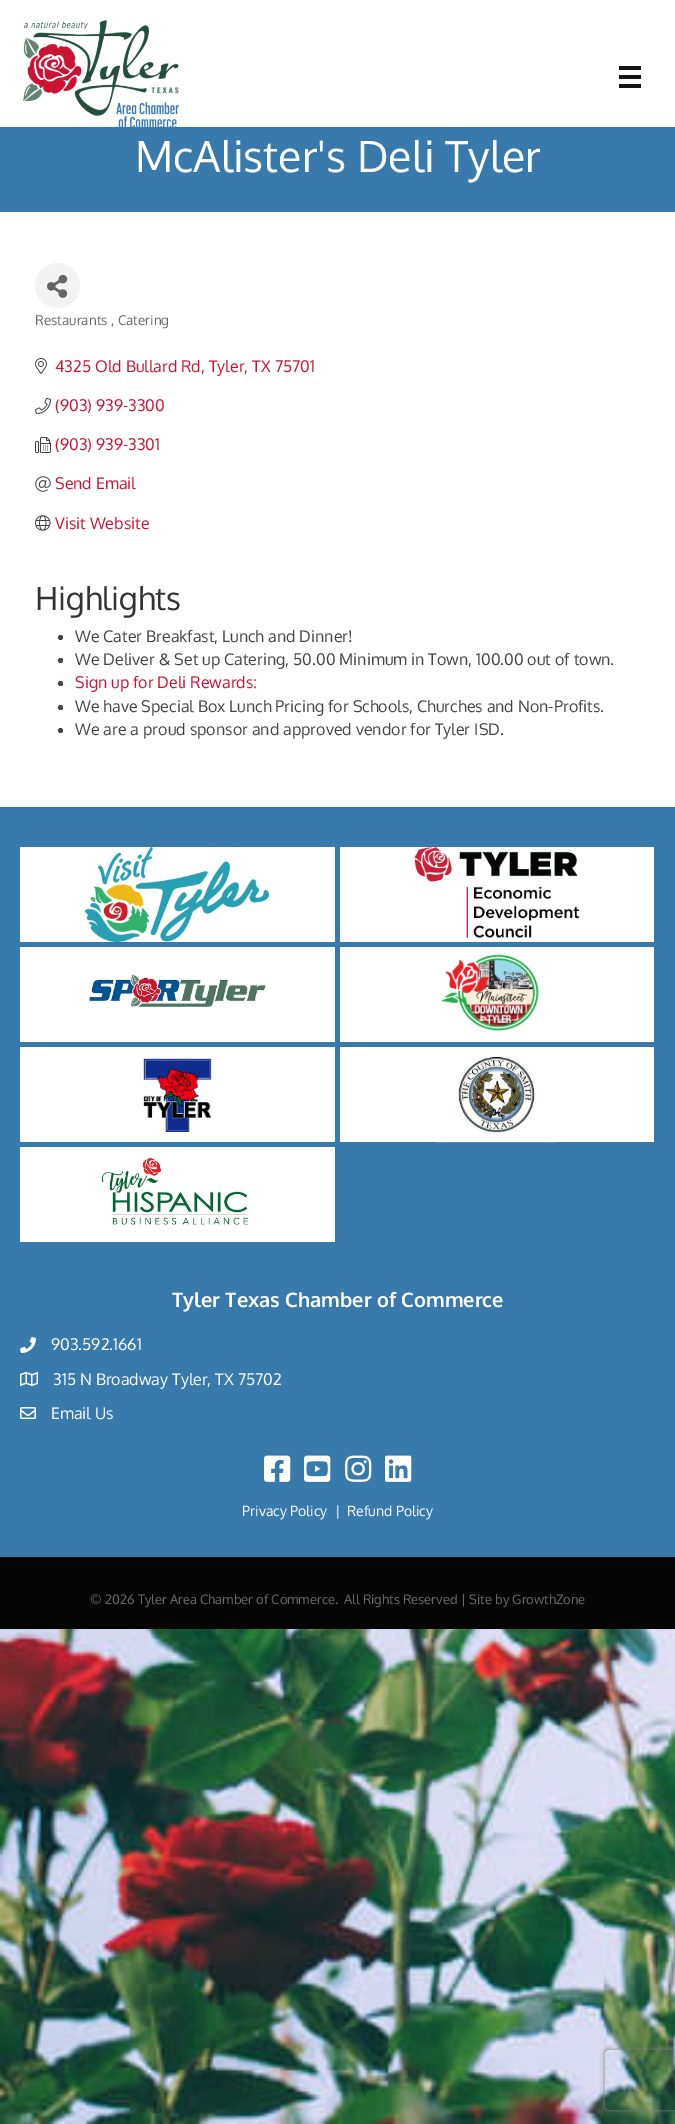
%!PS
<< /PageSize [675 2124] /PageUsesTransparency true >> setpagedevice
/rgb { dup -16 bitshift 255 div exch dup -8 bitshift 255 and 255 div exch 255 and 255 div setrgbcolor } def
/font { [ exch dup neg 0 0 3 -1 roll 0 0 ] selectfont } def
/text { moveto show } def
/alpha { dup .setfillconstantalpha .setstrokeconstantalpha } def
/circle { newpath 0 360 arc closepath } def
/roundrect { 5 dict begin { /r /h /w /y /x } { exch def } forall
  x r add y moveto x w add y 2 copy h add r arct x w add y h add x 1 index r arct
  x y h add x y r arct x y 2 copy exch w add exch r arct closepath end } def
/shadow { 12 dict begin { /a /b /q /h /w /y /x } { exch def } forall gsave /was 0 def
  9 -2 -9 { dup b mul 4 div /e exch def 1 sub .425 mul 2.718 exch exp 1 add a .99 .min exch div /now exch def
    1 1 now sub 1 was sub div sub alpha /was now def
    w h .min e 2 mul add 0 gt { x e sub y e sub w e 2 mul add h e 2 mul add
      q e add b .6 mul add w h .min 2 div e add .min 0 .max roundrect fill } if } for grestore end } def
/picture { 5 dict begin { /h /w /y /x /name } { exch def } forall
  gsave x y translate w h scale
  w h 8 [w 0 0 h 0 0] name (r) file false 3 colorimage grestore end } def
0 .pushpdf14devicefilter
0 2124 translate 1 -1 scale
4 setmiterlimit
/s1 { /Oxygen-Regular 43 font 16#FFFFFF rgb } def
/s2 { /Oxygen-Regular 13.5 font 16#696969 rgb } def
/s3 { /Oxygen-Regular 16 font 16#CA1333 rgb } def
/s4 { /Oxygen-Regular 32 font 16#333333 rgb } def
/s5 { /Oxygen-Regular 16 font 16#444444 rgb } def
/s6 { /Oxygen-Bold 20 font 16#FFFFFF rgb } def
/s7 { /Oxygen-Regular 16 font 16#FFFFFF rgb } def
/s8 { /Oxygen-Regular 14 font 16#FFFFFF rgb } def
/s9 { /Oxygen-Regular 13 font 16#696969 rgb } def
16#FFFFFF rgb
0 0 675 2124 rectfill
(pic1.raw) 0 1629 675 495 picture
(pic2.raw) 23 20 156 107 picture
16#141414 rgb
619 66 22 4 rectfill
619 75 22 4 rectfill
619 84 22 4 rectfill
16#397AAC rgb
0 127 675 85 rectfill
s1
(McAlister's Deli Tyler) 135 172 text
16#F3F3F3 rgb
57.5 285.5 22.5 circle fill
(pic3.raw) 47 274 21 24 picture
s2
(Restaurants , Catering) 35 325 text
(pic4.raw) 35 358 12 16 picture
s3
(4325 Old Bullard Rd, Tyler, TX 75701) 55 372 text
(pic5.raw) 35 398 16 16 picture
(\(903\) 939-3300) 55 411 text
(pic6.raw) 35 437 16 16 picture
(\(903\) 939-3301) 55 450 text
(pic7.raw) 35 476 16 16 picture
(Send Email) 55 489 text
(pic8.raw) 35 515 16 16 picture
(Visit Website) 55 529 text
s4
(Highlights) 35 610 text
16#444444 rgb
60.5 637.5 2.5 circle fill
s5
(We Cater Breakfast, Lunch and Dinner!) 75 642 text
60.5 660.5 2.5 circle fill
(We Deliver & Set up Catering, 50.00 Minimum in Town, 100.00 out of town.) 75 665 text
60.5 683.5 2.5 circle fill
s3
(Sign up for Deli Rewards:) 75 688 text
16#444444 rgb
60.5 707.5 2.5 circle fill
(We have Special Box Lunch Pricing for Schools, Churches and Non-Profits.) 75 712 text
60.5 730.5 2.5 circle fill
(We are a proud sponsor and approved vendor for Tyler ISD.) 75 735 text
16#397AAC rgb
0 807 675 750 rectfill
16#FFFFFF rgb
20 847 315 95 rectfill
(pic9.raw) 85 847 184 95 picture
340 847 314 95 rectfill
(pic10.raw) 414 847 166 92 picture
20 947 315 95 rectfill
(pic11.raw) 89 974 177 33 picture
340 947 314 95 rectfill
(pic12.raw) 441 954 98 77 picture
20 1047 315 95 rectfill
(pic13.raw) 143 1058 69 74 picture
340 1047 314 95 rectfill
(pic14.raw) 437 1055 119 88 picture
20 1147 315 95 rectfill
(pic15.raw) 101 1157 148 68 picture
s6
(Tyler Texas Chamber of Commerce) 172 1307 text
(pic16.raw) 20 1337 16 16 picture
s7
(903.592.1661) 51 1350 text
(pic17.raw) 20 1372 18 14 picture
(315 N Broadway Tyler, TX 75702) 53 1385 text
(pic18.raw) 20 1407 16 12 picture
(Email Us) 51 1419 text
(pic19.raw) 264 1455 27 27 picture
(pic20.raw) 304 1455 27 27 picture
(pic21.raw) 345 1455 27 27 picture
(pic22.raw) 385 1455 27 27 picture
s8
(Privacy Policy) 242 1516 text
(|) 335 1516 text
(Refund Policy) 347 1516 text
16#050505 rgb
0 1557 675 72 rectfill
s9
(© 2026 Tyler Area Chamber of Commerce.) 90 1604 text
(All Rights Reserved | Site by GrowthZone) 344 1604 text
gsave
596 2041 moveto 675 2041 lineto 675 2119 lineto 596 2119 lineto closepath 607 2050 moveto 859 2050 lineto 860 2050 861 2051 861 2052 curveto 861 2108 lineto 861 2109 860 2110 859 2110 curveto 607 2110 lineto 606 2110 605 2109 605 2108 curveto 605 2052 lineto 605 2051 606 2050 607 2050 curveto closepath eoclip newpath
16#808080 rgb
605 2050 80 60 2 2.5 1 shadow
grestore
.poppdf14devicefilter showpage
